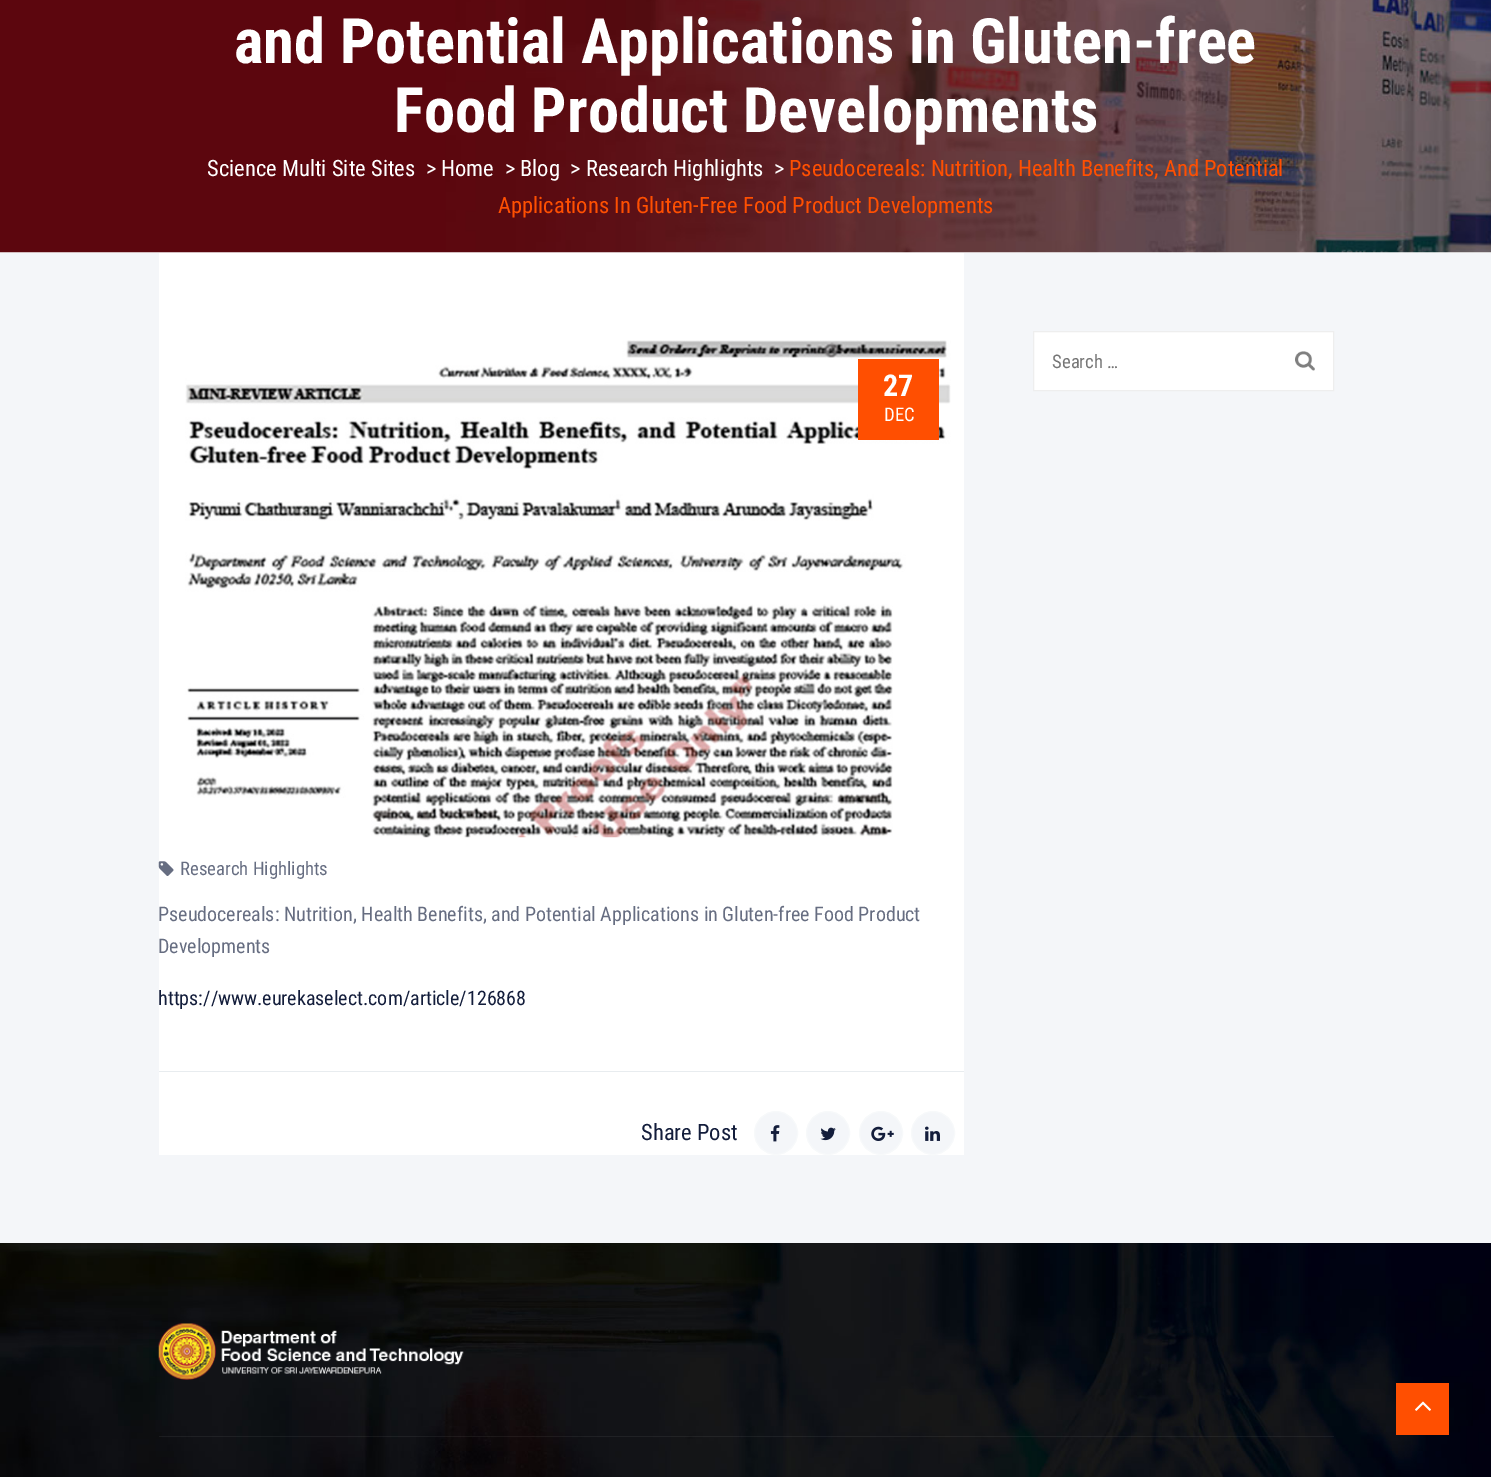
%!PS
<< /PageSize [1491 1477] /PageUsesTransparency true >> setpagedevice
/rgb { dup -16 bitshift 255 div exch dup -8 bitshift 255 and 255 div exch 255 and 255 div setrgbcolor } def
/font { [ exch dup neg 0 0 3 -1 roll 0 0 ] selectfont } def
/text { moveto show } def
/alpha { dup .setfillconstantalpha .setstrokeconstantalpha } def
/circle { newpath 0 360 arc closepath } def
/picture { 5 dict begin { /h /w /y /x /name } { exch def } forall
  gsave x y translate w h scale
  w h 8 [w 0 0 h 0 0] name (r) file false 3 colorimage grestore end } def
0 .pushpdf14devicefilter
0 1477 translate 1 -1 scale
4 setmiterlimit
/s1 { /RobotoCondensed-Bold 62.5 font 16#FFFFFF rgb } def
/s2 { /RobotoCondensed-Regular 22.5 font 16#FFFFFF rgb } def
/s3 { /RobotoCondensed-Regular 22.5 font 16#FF4F01 rgb } def
/s4 { /RobotoCondensed-Regular 18.75 font 16#757575 rgb } def
/s5 { /RobotoCondensed-Bold 30 font 16#FFFFFF rgb } def
/s6 { /RobotoCondensed-Regular 18.75 font 16#FFFFFF rgb } def
/s7 { /RobotoCondensed-Regular 18.75 font 16#666D81 rgb } def
/s8 { /RobotoCondensed-Regular 20 font 16#666D81 rgb } def
/s9 { /RobotoCondensed-Regular 20 font 16#131D3B rgb } def
/s10 { /RobotoCondensed-Regular 22.5 font 16#131D3B rgb } def
16#FFFFFF rgb
0 0 1491 1477 rectfill
16#FAFAFA rgb
0 252 1491 1 rectfill
(pic1.raw) 0 0 1491 253 picture
s1
(and Potential Applications in Gluten-free) 234 63 text
(Food Product Developments) 394 132 text
s2
(Science Multi Site Sites) 207 176 text
(>) 426 176 text
(Home) 441 176 text
(>) 505 176 text
(Blog) 520 176 text
(>) 570 176 text
(Research Highlights) 586 176 text
(>) 774 176 text
s3
(Pseudocereals: Nutrition, Health Benefits, And Potential) 789 176 text
(Applications In Gluten-Free Food Product Developments) 498 213 text
16#F4F6F9 rgb
0 253 1491 990 rectfill
16#FFFFFF rgb
1033.5 331.5 moveto 1333.5 331.5 lineto 1333.5 390.5 lineto 1033.5 390.5 lineto closepath gsave fill grestore
16#EEEEEE rgb
stroke
s4
(Search …) 1052 368 text
(pic2.raw) 1295 351 20 20 picture
16#FFFFFF rgb
159 253 805 902 rectfill
(pic3.raw) 185 340 766 498 picture
16#FF4F01 rgb
858 359 81 81 rectfill
s5
(27) 883 396 text
s6
(DEC) 884 421 text
(pic4.raw) 158 861 16 15 picture
s7
(Research Highlights) 180 875 text
s8
(Pseudocereals: Nutrition, Health Benefits, and Potential Applications in Gluten-free Food Product) 158 921 text
(Developments) 158 953 text
s9
(https://www.eurekaselect.com/article/126868) 158 1005 text
16#E8ECEF rgb
159 1071 805 1 rectfill
s10
(Share Post) 641 1140 text
16#F4F6F9 rgb
776 1133 21.5 circle gsave fill grestore
16#F7F9FA rgb
stroke
(pic5.raw) 770 1125 10 17 picture
16#F4F6F9 rgb
828 1133 21.5 circle gsave fill grestore
16#F7F9FA rgb
stroke
(pic6.raw) 820 1127 16 14 picture
16#F4F6F9 rgb
881 1133 21.5 circle gsave fill grestore
16#F7F9FA rgb
stroke
(pic7.raw) 871 1126 23 15 picture
16#F4F6F9 rgb
933 1133 21.5 circle gsave fill grestore
16#F7F9FA rgb
stroke
(pic8.raw) 925 1126 15 15 picture
(pic9.raw) 0 1243 1491 234 picture
0.06 alpha
16#FFFFFF rgb
159 1436 1175 1 rectfill
1 alpha
(pic10.raw) 158 1323 306 57 picture
16#FF4F01 rgb
1396 1383 53 52 rectfill
(pic11.raw) 1415 1401 16 10 picture
.poppdf14devicefilter showpage
